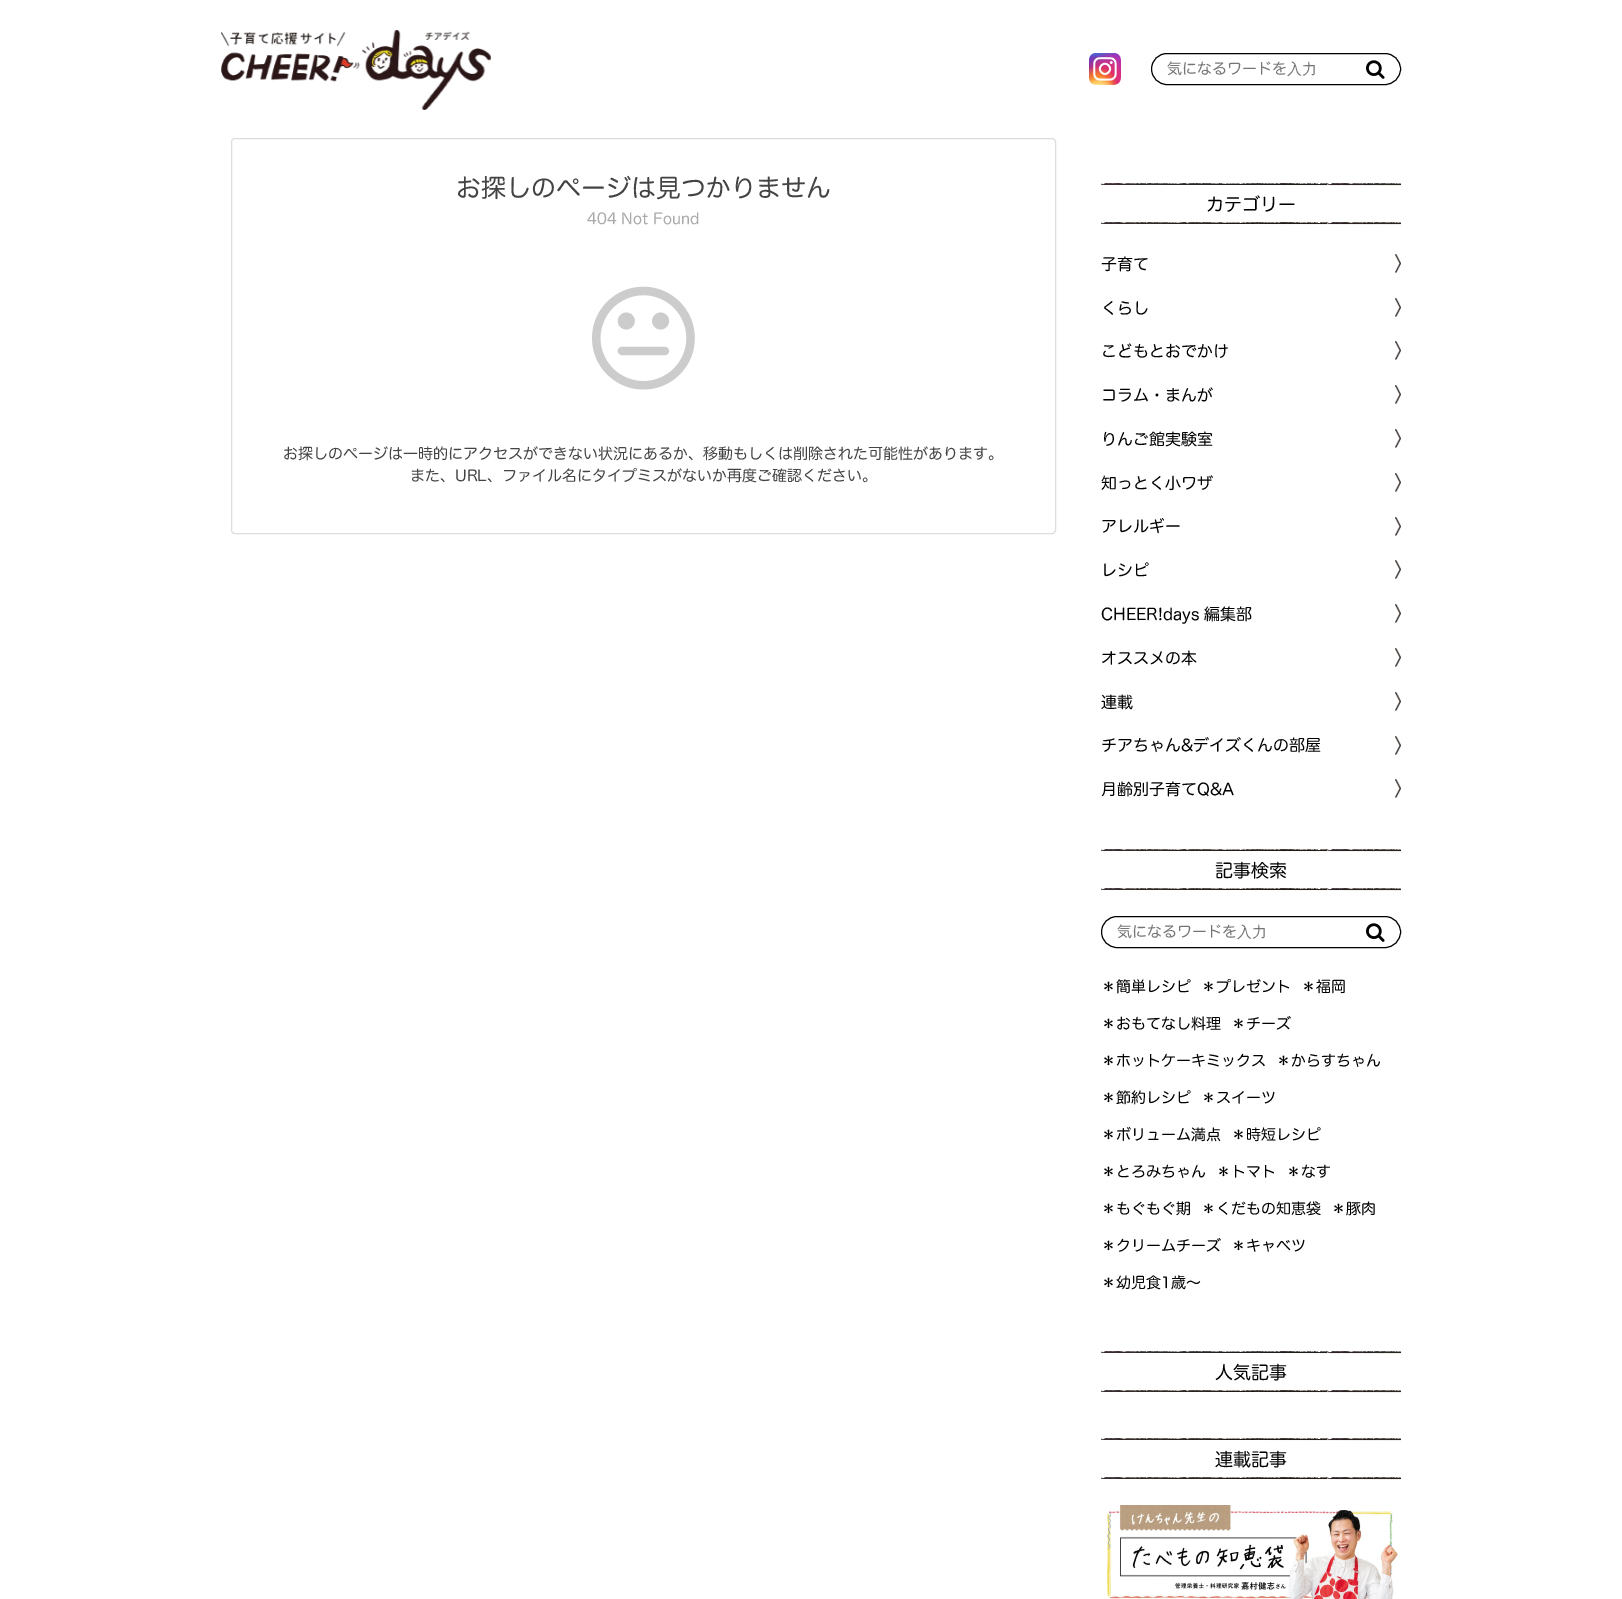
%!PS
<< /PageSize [1622 1599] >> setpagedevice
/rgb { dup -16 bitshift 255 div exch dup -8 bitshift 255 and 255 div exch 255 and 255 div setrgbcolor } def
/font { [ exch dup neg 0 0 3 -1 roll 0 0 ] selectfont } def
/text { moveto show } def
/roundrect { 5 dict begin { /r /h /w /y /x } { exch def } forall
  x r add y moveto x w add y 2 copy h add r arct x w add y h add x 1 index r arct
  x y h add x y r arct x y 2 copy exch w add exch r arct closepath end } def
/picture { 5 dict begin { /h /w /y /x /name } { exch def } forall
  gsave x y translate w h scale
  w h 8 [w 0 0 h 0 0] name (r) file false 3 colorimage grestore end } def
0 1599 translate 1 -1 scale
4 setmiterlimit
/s1 { /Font-Regular 15 font 16#757575 rgb } def
/s2 { /WenQuanYiZenHei-Medium 15 font 16#757575 rgb } def
/s3 { /Font-Regular 25 font 16#444444 rgb } def
/s4 { /Font-Regular 15 font 16#AAAAAA rgb } def
/s5 { /Font-Regular 15 font 16#444444 rgb } def
/s6 { /Font-Regular 18 font 16#000000 rgb } def
/s7 { /Font-Regular 16 font 16#000000 rgb } def
/s8 { /Font-Regular 15 font 16#000000 rgb } def
16#FFFFFF rgb
0 0 1622 1599 rectfill
(pic1.raw) 221 30 270 80 picture
(pic2.raw) 1089 53 32 32 picture
16#000000 rgb
1151.5 53.5 249 31 15.5 roundrect stroke
s1
(気になるワードを) 1167 74 text
s2
(入力) 1287 74 text
(pic3.raw) 1366 60 19 19 picture
16#DDDDDD rgb
231.5 138.5 824 395 3.5 roundrect stroke
s3
(お探しのページは見つかりません) 456 197 text
s4
(404 Not Found) 587 224 text
(pic4.raw) 592 286 103 104 picture
s5
(お探しのページは一時的にアクセスができない状況にあるか、移動もしくは削除された可能性があります。) 283 459 text
(また、URL、ファイル名にタイプミスがないか再度ご確認ください。) 410 481 text
(pic5.raw) 1101 183 300 3 picture
s6
(カテゴリー) 1206 211 text
(pic6.raw) 1101 222 300 3 picture
s7
(子育て) 1101 270 text
(pic7.raw) 1395 254 6 19 picture
(くらし) 1101 314 text
(pic8.raw) 1395 298 6 19 picture
(こどもとおでかけ) 1101 357 text
(pic8.raw) 1395 341 6 19 picture
(コラム・まんが) 1101 401 text
(pic8.raw) 1395 385 6 19 picture
(りんご館実験室) 1101 445 text
(pic8.raw) 1395 429 6 19 picture
(知っとく小ワザ) 1101 489 text
(pic8.raw) 1395 473 6 19 picture
(アレルギー) 1101 532 text
(pic8.raw) 1395 517 6 19 picture
(レシピ) 1101 576 text
(pic8.raw) 1395 560 6 19 picture
(CHEER!days 編集部) 1101 620 text
(pic8.raw) 1395 604 6 19 picture
(オススメの本) 1101 664 text
(pic8.raw) 1395 648 6 19 picture
(連載) 1101 708 text
(pic8.raw) 1395 692 6 19 picture
(チアちゃん&デイズくんの部屋) 1101 751 text
(pic8.raw) 1395 736 6 19 picture
(月齢別子育てQ&A) 1101 795 text
(pic8.raw) 1395 779 6 19 picture
(pic9.raw) 1101 849 300 3 picture
s6
(記事検索) 1215 877 text
(pic10.raw) 1101 888 300 3 picture
1101.5 916.5 299 31 15.5 roundrect stroke
s1
(気になるワードを) 1117 937 text
s2
(入力) 1237 937 text
(pic3.raw) 1366 923 19 19 picture
s8
(＊簡単レシピ) 1101 992 text
(＊プレゼント) 1201 992 text
(＊福岡) 1301 992 text
(＊おもてなし料理) 1101 1029 text
(＊チーズ) 1231 1029 text
(＊ホットケーキミックス) 1101 1066 text
(＊からすちゃん) 1276 1066 text
(＊節約レシピ) 1101 1103 text
(＊スイーツ) 1201 1103 text
(＊ボリューム満点) 1101 1140 text
(＊時短レシピ) 1231 1140 text
(＊とろみちゃん) 1101 1177 text
(＊トマト) 1216 1177 text
(＊なす) 1286 1177 text
(＊もぐもぐ期) 1101 1214 text
(＊くだもの知恵袋) 1201 1214 text
(＊豚肉) 1331 1214 text
(＊クリームチーズ) 1101 1251 text
(＊キャベツ) 1231 1251 text
(＊幼児食1歳～) 1101 1288 text
(pic11.raw) 1101 1351 300 3 picture
s6
(人気記事) 1215 1379 text
(pic12.raw) 1101 1390 300 3 picture
(pic11.raw) 1101 1438 300 3 picture
(連載記事) 1215 1466 text
(pic13.raw) 1101 1477 300 3 picture
(pic14.raw) 1106 1505 292 94 picture
showpage
